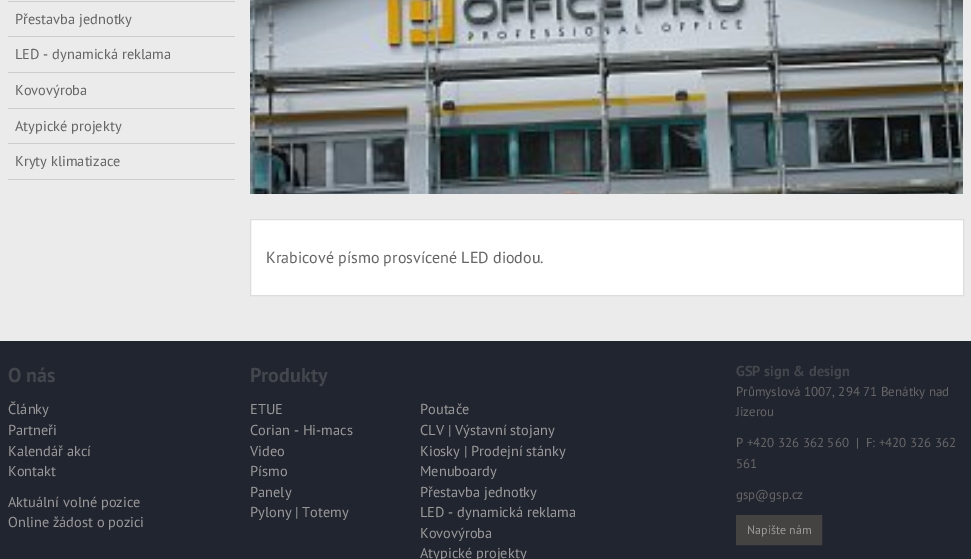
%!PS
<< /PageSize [971 559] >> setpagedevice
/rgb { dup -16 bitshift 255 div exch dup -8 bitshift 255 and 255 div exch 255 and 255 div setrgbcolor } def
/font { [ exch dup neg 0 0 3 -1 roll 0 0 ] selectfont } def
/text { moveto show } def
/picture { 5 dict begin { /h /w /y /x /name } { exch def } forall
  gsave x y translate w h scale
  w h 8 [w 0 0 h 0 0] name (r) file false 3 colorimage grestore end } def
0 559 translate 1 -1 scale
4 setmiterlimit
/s1 { /PTSans-Regular 14.4 font 16#666666 rgb } def
/s2 { /PTSans-Regular 16 font 16#666666 rgb } def
/s3 { /PTSans-Bold 20 font 16#43464C rgb } def
/s4 { /PTSans-Regular 14.4 font 16#999999 rgb } def
/s5 { /PTSans-Bold 14.4 font 16#43464C rgb } def
/s6 { /PTSans-Regular 13 font 16#666666 rgb } def
/s7 { /PTSans-Regular 12 font 16#999999 rgb } def
16#EBEBEB rgb
0 0 971 559 rectfill
16#CCCCCC rgb
8 1 227 1 rectfill
8 36 227 1 rectfill
s1
(Přestavba jednotky) 15 24 text
16#CCCCCC rgb
8 72 227 1 rectfill
s1
(LED - dynamická reklama) 15 59 text
16#CCCCCC rgb
8 108 227 1 rectfill
s1
(Kovovýroba) 15 95 text
16#CCCCCC rgb
8 143 227 1 rectfill
s1
(Atypické projekty) 15 131 text
16#CCCCCC rgb
8 179 227 1 rectfill
s1
(Kryty klimatizace) 15 166 text
(pic1.raw) 250 0 713 194 picture
16#FFFFFF rgb
250.5 219.5 moveto 963.5 219.5 lineto 963.5 295.5 lineto 250.5 295.5 lineto closepath gsave fill grestore
16#DDDDDD rgb
stroke
s2
(Krabicové písmo prosvícené LED diodou.) 266 263 text
16#21252F rgb
0 341 971 218 rectfill
s3
(O nás) 8 382 text
s4
(Články) 8 414 text
(Partneři) 8 435 text
(Kalendář akcí) 8 456 text
(Kontakt) 8 476 text
(Aktuální volné pozice) 8 507 text
(Online žádost o pozici) 8 527 text
s3
(Produkty) 250 382 text
s4
(ETUE) 250 414 text
(Corian - Hi-macs) 250 435 text
(Video) 250 456 text
(Písmo) 250 476 text
(Panely) 250 497 text
(Pylony | Totemy) 250 517 text
(Poutače) 420 414 text
(CLV | Výstavní stojany) 420 435 text
(Kiosky | Prodejní stánky) 420 456 text
(Menuboardy) 420 476 text
(Přestavba jednotky) 420 497 text
(LED - dynamická reklama) 420 517 text
(Kovovýroba) 420 538 text
(Atypické projekty) 420 558 text
s5
(GSP sign & design) 736 376 text
s6
(Průmyslová 1007, 294 71 Benátky nad) 736 396 text
(Jizerou) 736 416 text
(P +420 326 362 560  |  F: +420 326 362) 736 447 text
(561) 736 468 text
(gsp@gsp.cz) 736 499 text
16#444341 rgb
736.5 515.5 moveto 821.5 515.5 lineto 821.5 544.5 lineto 736.5 544.5 lineto closepath gsave fill grestore
stroke
s7
(Napište nám) 747 534 text
showpage
